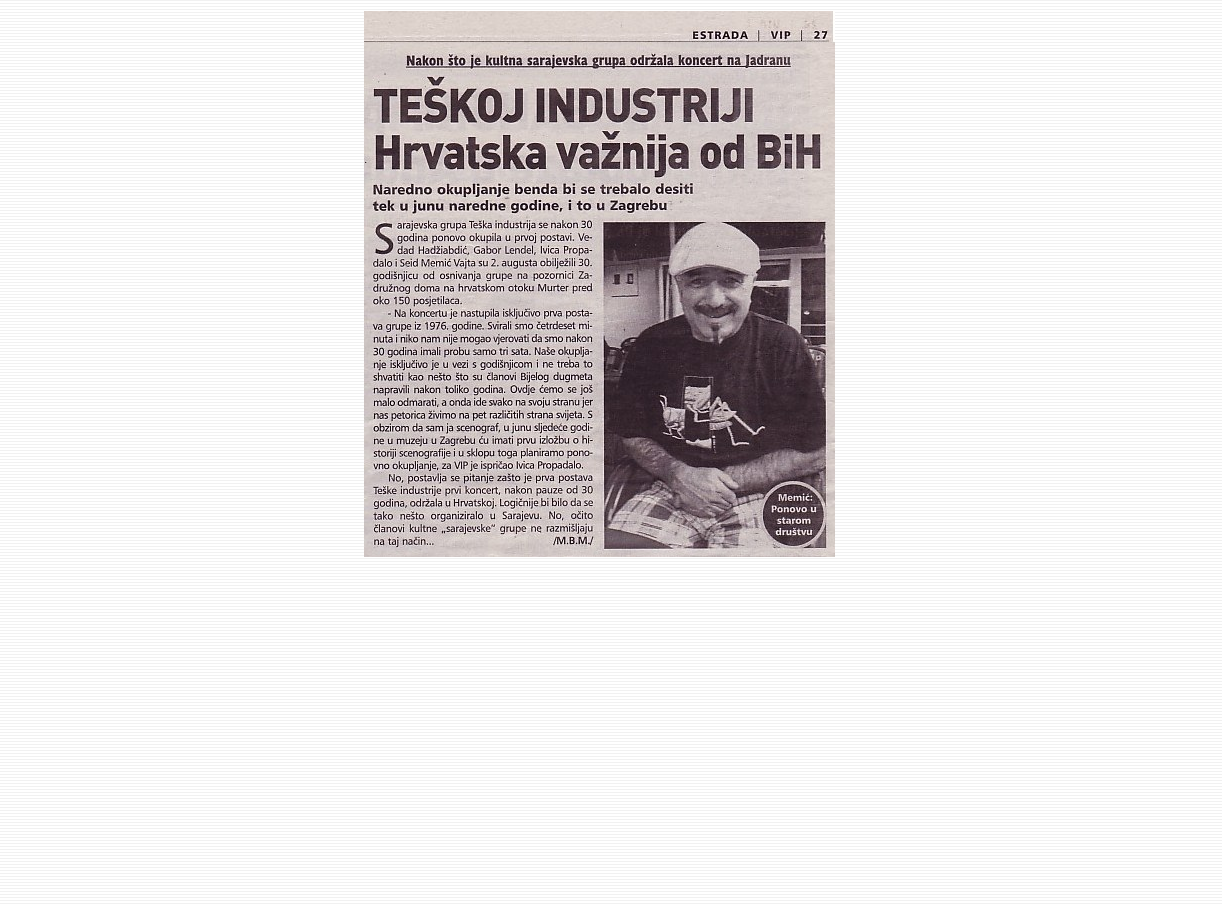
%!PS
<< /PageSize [1222 905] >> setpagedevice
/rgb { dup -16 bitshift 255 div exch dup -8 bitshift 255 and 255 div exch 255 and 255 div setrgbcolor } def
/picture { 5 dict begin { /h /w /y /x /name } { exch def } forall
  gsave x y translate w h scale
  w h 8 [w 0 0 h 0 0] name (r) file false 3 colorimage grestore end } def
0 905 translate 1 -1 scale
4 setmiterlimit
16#FFFFFF rgb
0 0 1222 905 rectfill
(pic1.raw) 0 0 1222 904 picture
(pic2.raw) 364 11 471 546 picture
showpage
